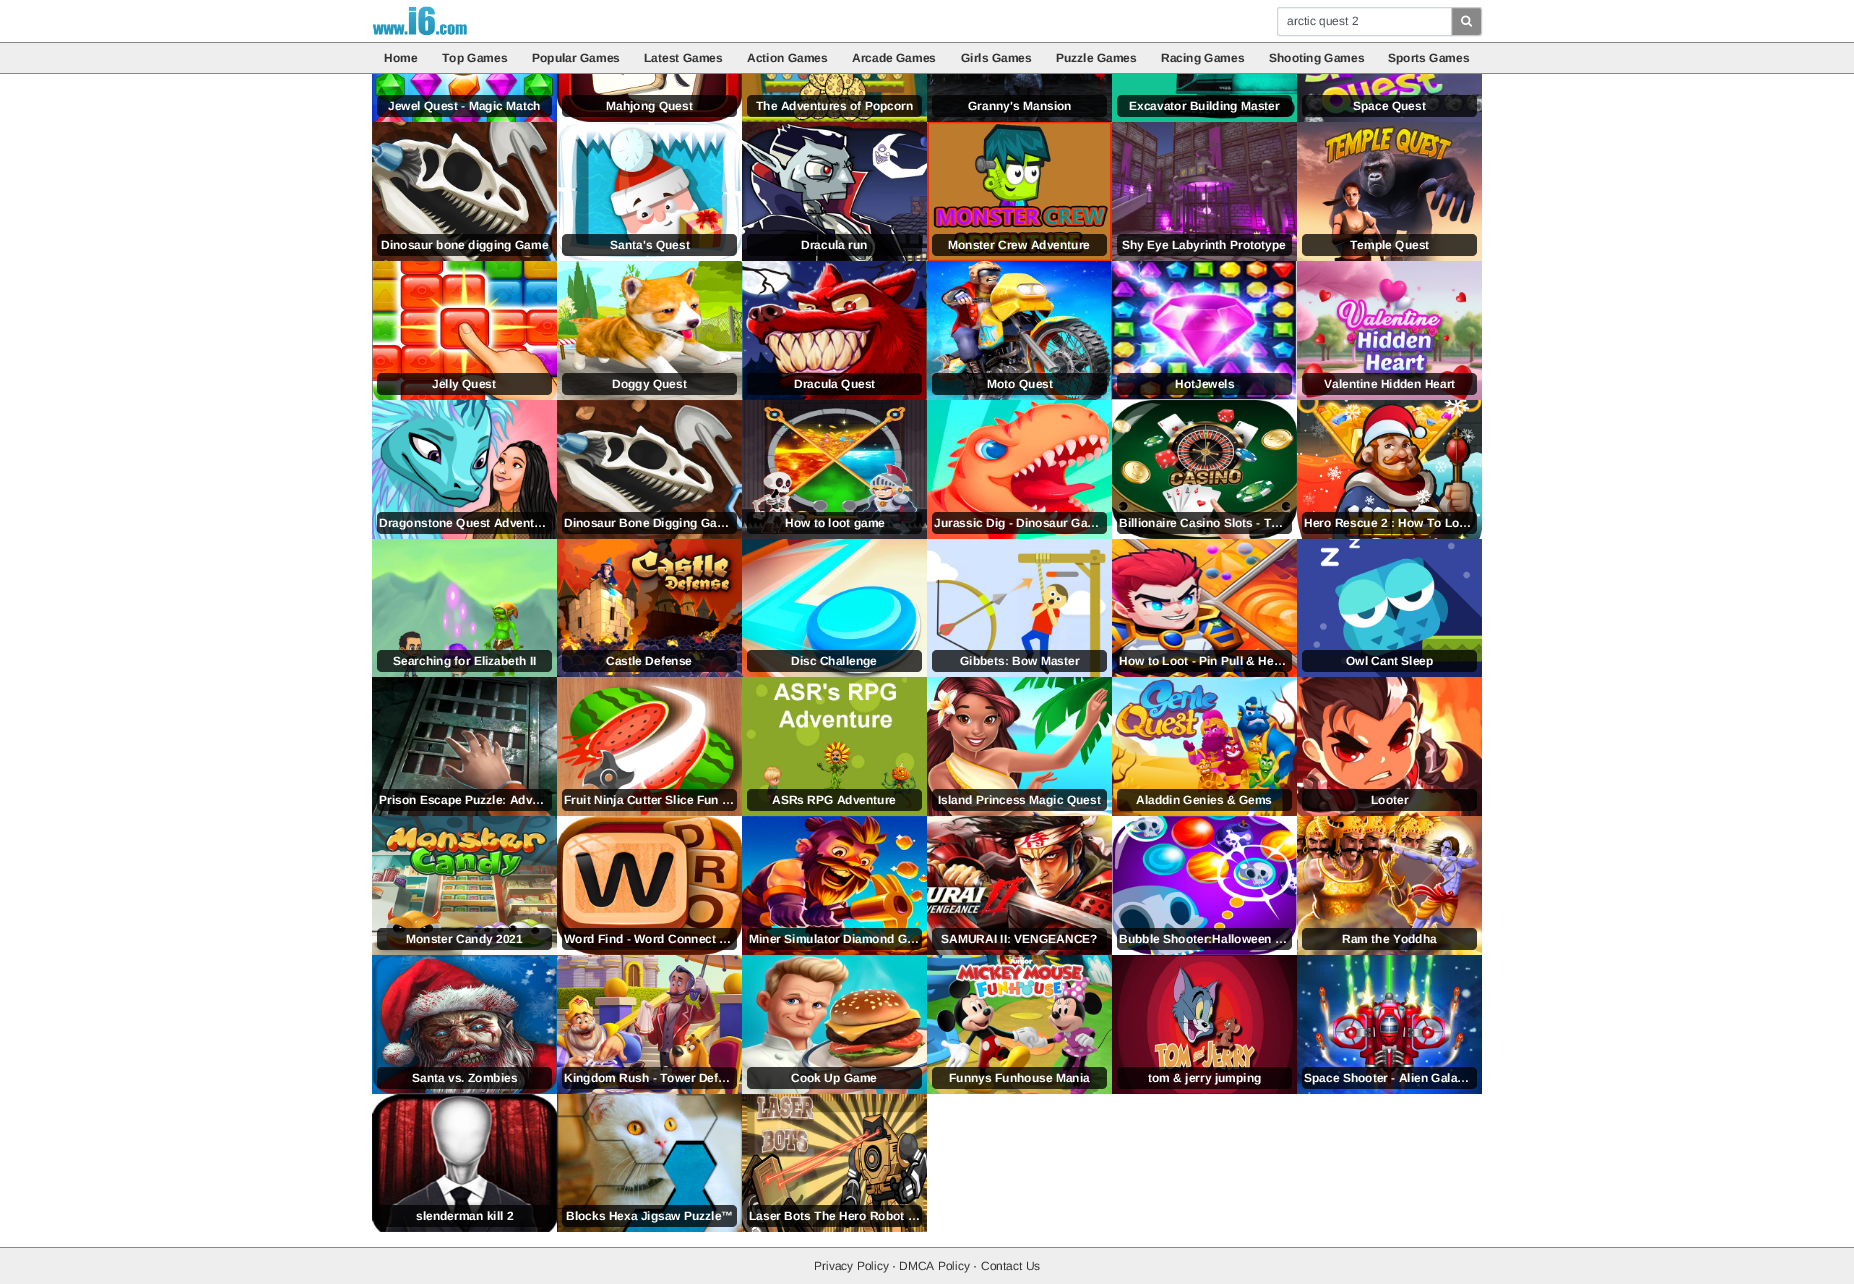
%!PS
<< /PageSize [1854 1284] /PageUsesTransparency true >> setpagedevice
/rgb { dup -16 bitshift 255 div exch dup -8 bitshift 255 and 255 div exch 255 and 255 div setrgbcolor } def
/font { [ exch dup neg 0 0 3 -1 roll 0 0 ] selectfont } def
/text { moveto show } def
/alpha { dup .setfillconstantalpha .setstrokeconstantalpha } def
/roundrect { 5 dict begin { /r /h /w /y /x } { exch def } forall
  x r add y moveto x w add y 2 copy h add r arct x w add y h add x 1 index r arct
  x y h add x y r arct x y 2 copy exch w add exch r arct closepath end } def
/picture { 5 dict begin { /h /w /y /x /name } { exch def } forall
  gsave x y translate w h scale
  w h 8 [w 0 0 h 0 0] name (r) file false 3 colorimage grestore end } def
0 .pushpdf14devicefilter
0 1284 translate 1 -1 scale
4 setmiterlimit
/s1 { /LiberationSans-Regular 12 font 16#495057 rgb } def
/s2 { /LiberationSans-Bold 12 font 16#333333 rgb } def
/s3 { /LiberationSans-Bold 12 font 16#FFFFFF rgb } def
/s4 { /LiberationSans-Regular 12 font 16#333333 rgb } def
/s5 { /LiberationSans-Regular 12 font 16#000000 rgb } def
16#FFFFFF rgb
0 0 1854 1284 rectfill
(pic1.raw) 372 6 95 30 picture
16#CED4DA rgb
1280 7.5 moveto 1451.5 7.5 lineto 1451.5 35.5 lineto 1280 35.5 lineto 1278.5 35.5 1277.5 34.5 1277.5 33 curveto 1277.5 10 lineto 1277.5 8.5 1278.5 7.5 1280 7.5 curveto closepath stroke
s1
(arctic quest 2) 1287 25 text
16#888888 rgb
1451.5 7.5 moveto 1479 7.5 lineto 1480.5 7.5 1481.5 8.5 1481.5 10 curveto 1481.5 33 lineto 1481.5 34.5 1480.5 35.5 1479 35.5 curveto 1451.5 35.5 lineto closepath gsave fill grestore
16#CCCCCC rgb
stroke
(pic2.raw) 1461 15 12 12 picture
16#EEEEEE rgb
0 43 1854 30 rectfill
16#888888 rgb
0 42 1854 1 rectfill
0 73 1854 1 rectfill
s2
(Home) 384 62 text
(Top Games) 442 62 text
(Popular Games) 532 62 text
(Latest Games) 644 62 text
(Action Games) 747 62 text
(Arcade Games) 852 62 text
(Girls Games) 961 62 text
(Puzzle Games) 1056 62 text
(Racing Games) 1161 62 text
(Shooting Games) 1269 62 text
(Sports Games) 1388 62 text
(pic3.raw) 372 74 185 48 picture
0.75 alpha
16#000000 rgb
377 95 175 22 5 roundrect fill
1 alpha
s3
(Jewel Quest - Magic Match) 388 110 text
(pic4.raw) 557 74 185 48 picture
0.75 alpha
16#000000 rgb
562 95 175 22 5 roundrect fill
1 alpha
s3
(Mahjong Quest) 606 110 text
(pic5.raw) 742 74 185 48 picture
0.75 alpha
16#000000 rgb
747 95 175 22 5 roundrect fill
1 alpha
s3
(The Adventures of Popcorn) 756 110 text
(pic6.raw) 927 74 185 48 picture
0.75 alpha
16#000000 rgb
932 95 175 22 5 roundrect fill
1 alpha
s3
(Granny's Mansion) 968 110 text
(pic7.raw) 1112 74 185 48 picture
0.75 alpha
16#000000 rgb
1117 95 175 22 5 roundrect fill
1 alpha
s3
(Excavator Building Master) 1129 110 text
(pic8.raw) 1297 74 185 48 picture
0.75 alpha
16#000000 rgb
1302 95 175 22 5 roundrect fill
1 alpha
s3
(Space Quest) 1353 110 text
(pic9.raw) 372 122 185 139 picture
0.75 alpha
16#000000 rgb
377 234 175 22 5 roundrect fill
1 alpha
s3
(Dinosaur bone digging Game) 381 249 text
(pic10.raw) 557 122 185 139 picture
0.75 alpha
16#000000 rgb
562 234 175 22 5 roundrect fill
1 alpha
s3
(Santa's Quest) 610 249 text
(pic11.raw) 742 122 185 139 picture
0.75 alpha
16#000000 rgb
747 234 175 22 5 roundrect fill
1 alpha
s3
(Dracula run) 801 249 text
(pic12.raw) 927 122 185 139 picture
0.75 alpha
16#000000 rgb
932 234 175 22 5 roundrect fill
1 alpha
s3
(Monster Crew Adventure) 948 249 text
(pic13.raw) 1112 122 185 139 picture
0.75 alpha
16#000000 rgb
1117 234 175 22 5 roundrect fill
1 alpha
s3
(Shy Eye Labyrinth Prototype) 1122 249 text
(pic14.raw) 1297 122 185 139 picture
0.75 alpha
16#000000 rgb
1302 234 175 22 5 roundrect fill
1 alpha
s3
(Temple Quest) 1350 249 text
(pic15.raw) 372 261 185 139 picture
0.75 alpha
16#000000 rgb
377 373 175 22 5 roundrect fill
1 alpha
s3
(Jelly Quest) 432 388 text
(pic16.raw) 557 261 185 139 picture
0.75 alpha
16#000000 rgb
562 373 175 22 5 roundrect fill
1 alpha
s3
(Doggy Quest) 612 388 text
(pic17.raw) 742 261 185 139 picture
0.75 alpha
16#000000 rgb
747 373 175 22 5 roundrect fill
1 alpha
s3
(Dracula Quest) 794 388 text
(pic18.raw) 927 261 185 139 picture
0.75 alpha
16#000000 rgb
932 373 175 22 5 roundrect fill
1 alpha
s3
(Moto Quest) 987 388 text
(pic19.raw) 1112 261 185 139 picture
0.75 alpha
16#000000 rgb
1117 373 175 22 5 roundrect fill
1 alpha
s3
(HotJewels) 1175 388 text
(pic20.raw) 1297 261 185 139 picture
0.75 alpha
16#000000 rgb
1302 373 175 22 5 roundrect fill
1 alpha
s3
(Valentine Hidden Heart) 1324 388 text
(pic21.raw) 372 400 185 139 picture
0.75 alpha
16#000000 rgb
377 512 175 22 5 roundrect fill
1 alpha
s3
(Dragonstone Quest Advent…) 379 527 text
(pic22.raw) 557 400 185 139 picture
0.75 alpha
16#000000 rgb
562 512 175 22 5 roundrect fill
1 alpha
s3
(Dinosaur Bone Digging Ga…) 564 527 text
(pic23.raw) 742 400 185 139 picture
0.75 alpha
16#000000 rgb
747 512 175 22 5 roundrect fill
1 alpha
s3
(How to loot game) 785 527 text
(pic24.raw) 927 400 185 139 picture
0.75 alpha
16#000000 rgb
932 512 175 22 5 roundrect fill
1 alpha
s3
(Jurassic Dig - Dinosaur Ga…) 934 527 text
(pic25.raw) 1112 400 185 139 picture
0.75 alpha
16#000000 rgb
1117 512 175 22 5 roundrect fill
1 alpha
s3
(Billionaire Casino Slots - T…) 1119 527 text
(pic26.raw) 1297 400 185 139 picture
0.75 alpha
16#000000 rgb
1302 512 175 22 5 roundrect fill
1 alpha
s3
(Hero Rescue 2 : How To Lo…) 1304 527 text
(pic27.raw) 372 539 185 138 picture
0.75 alpha
16#000000 rgb
377 650 175 22 5 roundrect fill
1 alpha
s3
(Searching for Elizabeth II) 393 665 text
(pic28.raw) 557 539 185 138 picture
0.75 alpha
16#000000 rgb
562 650 175 22 5 roundrect fill
1 alpha
s3
(Castle Defense) 606 665 text
(pic29.raw) 742 539 185 138 picture
0.75 alpha
16#000000 rgb
747 650 175 22 5 roundrect fill
1 alpha
s3
(Disc Challenge) 791 665 text
(pic30.raw) 927 539 185 138 picture
0.75 alpha
16#000000 rgb
932 650 175 22 5 roundrect fill
1 alpha
s3
(Gibbets: Bow Master) 960 665 text
(pic31.raw) 1112 539 185 138 picture
0.75 alpha
16#000000 rgb
1117 650 175 22 5 roundrect fill
1 alpha
s3
(How to Loot - Pin Pull & He…) 1119 665 text
(pic32.raw) 1297 539 185 138 picture
0.75 alpha
16#000000 rgb
1302 650 175 22 5 roundrect fill
1 alpha
s3
(Owl Cant Sleep) 1346 665 text
(pic33.raw) 372 677 185 139 picture
0.75 alpha
16#000000 rgb
377 789 175 22 5 roundrect fill
1 alpha
s3
(Prison Escape Puzzle: Adv…) 379 804 text
(pic34.raw) 557 677 185 139 picture
0.75 alpha
16#000000 rgb
562 789 175 22 5 roundrect fill
1 alpha
s3
(Fruit Ninja Cutter Slice Fun …) 564 804 text
(pic35.raw) 742 677 185 139 picture
0.75 alpha
16#000000 rgb
747 789 175 22 5 roundrect fill
1 alpha
s3
(ASRs RPG Adventure) 772 804 text
(pic36.raw) 927 677 185 139 picture
0.75 alpha
16#000000 rgb
932 789 175 22 5 roundrect fill
1 alpha
s3
(Island Princess Magic Quest) 938 804 text
(pic37.raw) 1112 677 185 139 picture
0.75 alpha
16#000000 rgb
1117 789 175 22 5 roundrect fill
1 alpha
s3
(Aladdin Genies & Gems) 1136 804 text
(pic38.raw) 1297 677 185 139 picture
0.75 alpha
16#000000 rgb
1302 789 175 22 5 roundrect fill
1 alpha
s3
(Looter) 1371 804 text
(pic39.raw) 372 816 185 139 picture
0.75 alpha
16#000000 rgb
377 928 175 22 5 roundrect fill
1 alpha
s3
(Monster Candy 2021) 406 943 text
(pic40.raw) 557 816 185 139 picture
0.75 alpha
16#000000 rgb
562 928 175 22 5 roundrect fill
1 alpha
s3
(Word Find - Word Connect …) 564 943 text
(pic41.raw) 742 816 185 139 picture
0.75 alpha
16#000000 rgb
747 928 175 22 5 roundrect fill
1 alpha
s3
(Miner Simulator Diamond G…) 749 943 text
(pic42.raw) 927 816 185 139 picture
0.75 alpha
16#000000 rgb
932 928 175 22 5 roundrect fill
1 alpha
s3
(SAMURAI II: VENGEANCE?) 941 943 text
(pic43.raw) 1112 816 185 139 picture
0.75 alpha
16#000000 rgb
1117 928 175 22 5 roundrect fill
1 alpha
s3
(Bubble Shooter:Halloween …) 1119 943 text
(pic44.raw) 1297 816 185 139 picture
0.75 alpha
16#000000 rgb
1302 928 175 22 5 roundrect fill
1 alpha
s3
(Ram the Yoddha) 1342 943 text
(pic45.raw) 372 955 185 139 picture
0.75 alpha
16#000000 rgb
377 1067 175 22 5 roundrect fill
1 alpha
s3
(Santa vs. Zombies) 412 1082 text
(pic46.raw) 557 955 185 139 picture
0.75 alpha
16#000000 rgb
562 1067 175 22 5 roundrect fill
1 alpha
s3
(Kingdom Rush - Tower Def…) 564 1082 text
(pic47.raw) 742 955 185 139 picture
0.75 alpha
16#000000 rgb
747 1067 175 22 5 roundrect fill
1 alpha
s3
(Cook Up Game) 791 1082 text
(pic48.raw) 927 955 185 139 picture
0.75 alpha
16#000000 rgb
932 1067 175 22 5 roundrect fill
1 alpha
s3
(Funnys Funhouse Mania) 949 1082 text
(pic49.raw) 1112 955 185 139 picture
0.75 alpha
16#000000 rgb
1117 1067 175 22 5 roundrect fill
1 alpha
s3
(tom & jerry jumping) 1148 1082 text
(pic50.raw) 1297 955 185 139 picture
0.75 alpha
16#000000 rgb
1302 1067 175 22 5 roundrect fill
1 alpha
s3
(Space Shooter - Alien Gala…) 1304 1082 text
(pic51.raw) 372 1094 185 138 picture
0.75 alpha
16#000000 rgb
377 1205 175 22 5 roundrect fill
1 alpha
s3
(slenderman kill 2) 416 1220 text
(pic52.raw) 557 1094 185 138 picture
0.75 alpha
16#000000 rgb
562 1205 175 22 5 roundrect fill
1 alpha
s3
(Blocks Hexa Jigsaw Puzzle™) 566 1220 text
(pic53.raw) 742 1094 185 138 picture
0.75 alpha
16#000000 rgb
747 1205 175 22 5 roundrect fill
1 alpha
s3
(Laser Bots The Hero Robot …) 749 1220 text
16#EEEEEE rgb
0 1248 1854 36 rectfill
16#888888 rgb
0 1247 1854 1 rectfill
s4
(Privacy Policy) 814 1270 text
s5
(·) 892 1270 text
s4
(DMCA Policy) 899 1270 text
s5
(·) 973 1270 text
s4
(Contact Us) 981 1270 text
.poppdf14devicefilter showpage
